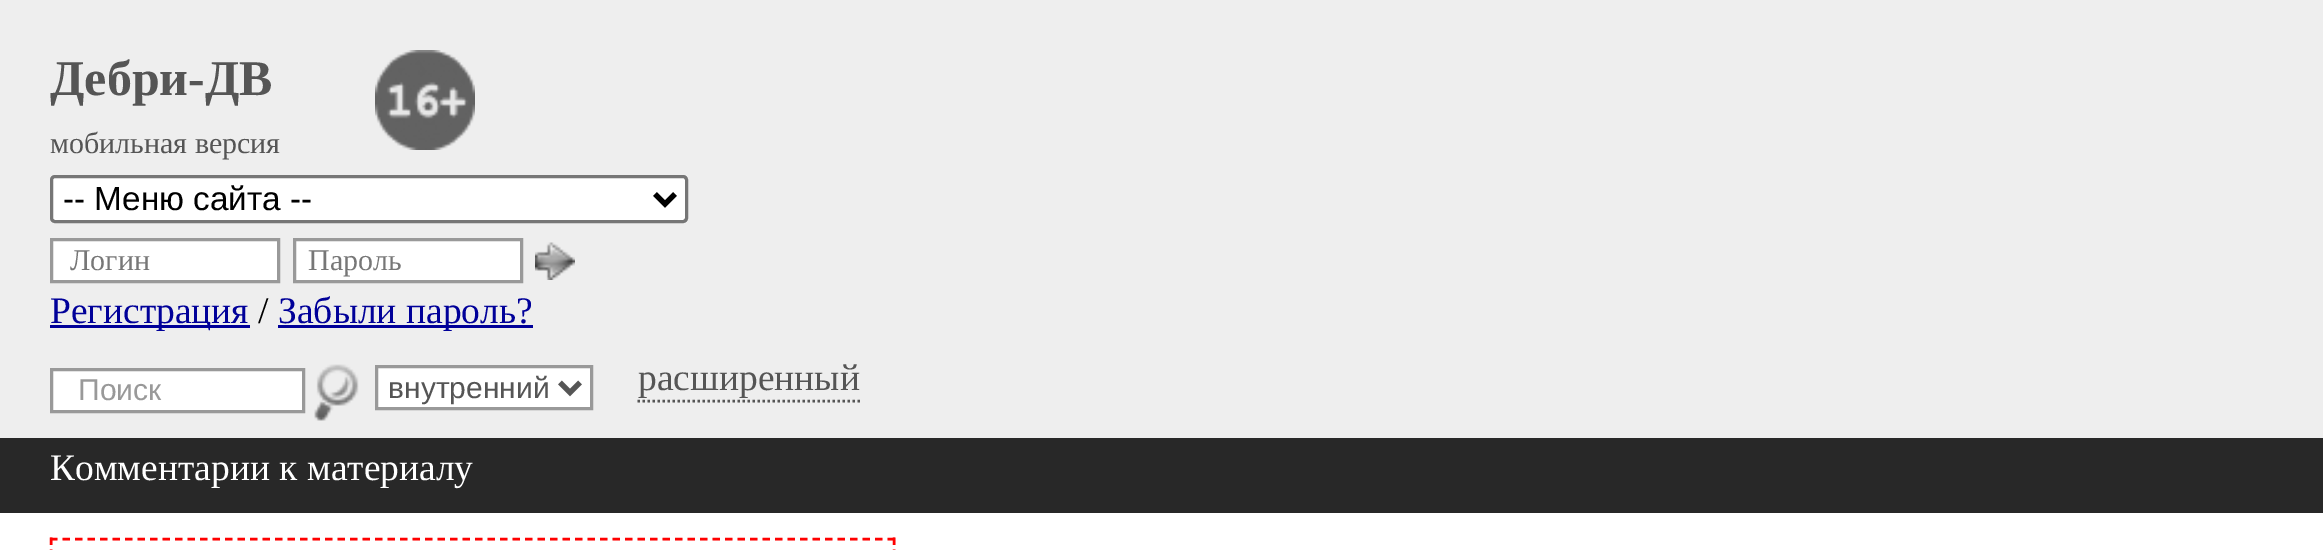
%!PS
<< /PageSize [2323 550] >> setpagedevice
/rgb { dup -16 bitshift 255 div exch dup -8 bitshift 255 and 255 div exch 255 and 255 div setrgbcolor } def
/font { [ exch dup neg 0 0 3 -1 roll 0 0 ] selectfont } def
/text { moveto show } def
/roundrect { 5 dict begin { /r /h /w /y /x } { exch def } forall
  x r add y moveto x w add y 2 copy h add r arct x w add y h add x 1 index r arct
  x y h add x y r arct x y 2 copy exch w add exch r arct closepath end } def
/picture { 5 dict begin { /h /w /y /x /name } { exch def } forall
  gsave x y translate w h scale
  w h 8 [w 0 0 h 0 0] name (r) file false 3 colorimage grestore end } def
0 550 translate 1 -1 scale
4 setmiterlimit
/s1 { /LiberationSerif-Bold 50 font 16#555555 rgb } def
/s2 { /LiberationSerif-Regular 30 font 16#555555 rgb } def
/s3 { /LiberationSans-Regular 33.25 font 16#000000 rgb } def
/s4 { /LiberationSerif-Regular 30 font 16#777777 rgb } def
/s5 { /LiberationSerif-Regular 37.5 font 16#000099 rgb } def
/s6 { /LiberationSerif-Regular 37.5 font 16#000000 rgb } def
/s7 { /LiberationSans-Regular 30 font 16#999999 rgb } def
/s8 { /LiberationSans-Regular 30 font 16#555555 rgb } def
/s9 { /LiberationSerif-Regular 37.5 font 16#555555 rgb } def
/s10 { /LiberationSerif-Regular 37.5 font 16#FFFFFF rgb } def
16#FFFFFF rgb
0 0 2323 550 rectfill
16#EEEEEE rgb
0 0 2323 438 rectfill
s1
(Дебри-ДВ) 50 95 text
(pic1.raw) 375 50 100 100 picture
s2
(мобильная версия) 50 153 text
16#FFFFFF rgb
51.5 176.5 635 45 3.5 roundrect gsave fill grestore
16#767676 rgb
3 setlinewidth
stroke
16#000000 rgb
5 setlinewidth
655 194 moveto 665 204 lineto 675 194 lineto stroke
s3
(-- Меню сайта --) 63 210 text
16#FFFFFF rgb
51.5 239.5 moveto 278.5 239.5 lineto 278.5 281.5 lineto 51.5 281.5 lineto closepath gsave fill grestore
16#999999 rgb
3 setlinewidth
stroke
16#FFFFFF rgb
294.5 239.5 moveto 521.5 239.5 lineto 521.5 281.5 lineto 294.5 281.5 lineto closepath gsave fill grestore
16#999999 rgb
stroke
(pic2.raw) 535 242 40 38 picture
s4
(Логин) 70 270 text
(Пароль) 308 270 text
16#000099 rgb
50 325 200 3 rectfill
s5
(Регистрация) 50 323 text
s6
(/) 258 323 text
16#000099 rgb
278 325 255 3 rectfill
(Забыли пароль?) 278 323 text
16#FFFFFF rgb
51.5 369.5 moveto 303.5 369.5 lineto 303.5 411.5 lineto 51.5 411.5 lineto closepath gsave fill grestore
16#999999 rgb
stroke
s7
(Поиск) 78 400 text
(pic3.raw) 314 364 45 57 picture
16#FFFFFF rgb
376.5 366.5 moveto 591.5 366.5 lineto 591.5 408.5 lineto 376.5 408.5 lineto closepath gsave fill grestore
16#999999 rgb
stroke
16#555555 rgb
5 setlinewidth
560 382.5 moveto 570 392.5 lineto 580 382.5 lineto stroke
(внутренний) 388 398 text
2.5 setlinewidth
[2.5 2.5] 0 setdash
637.5 401 moveto 860 401 lineto stroke
s9
(расширенный) 638 390 text
16#282828 rgb
0 438 2323 75 rectfill
s10
(Комментарии к материалу) 50 480 text
16#FF0000 rgb
[7.5 5] 0 setdash
50 539 moveto 895 539 lineto stroke
[7.5 4.68] 0 setdash
894 537.5 moveto 894 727.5 lineto stroke
51 537.5 moveto 51 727.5 lineto stroke
showpage
